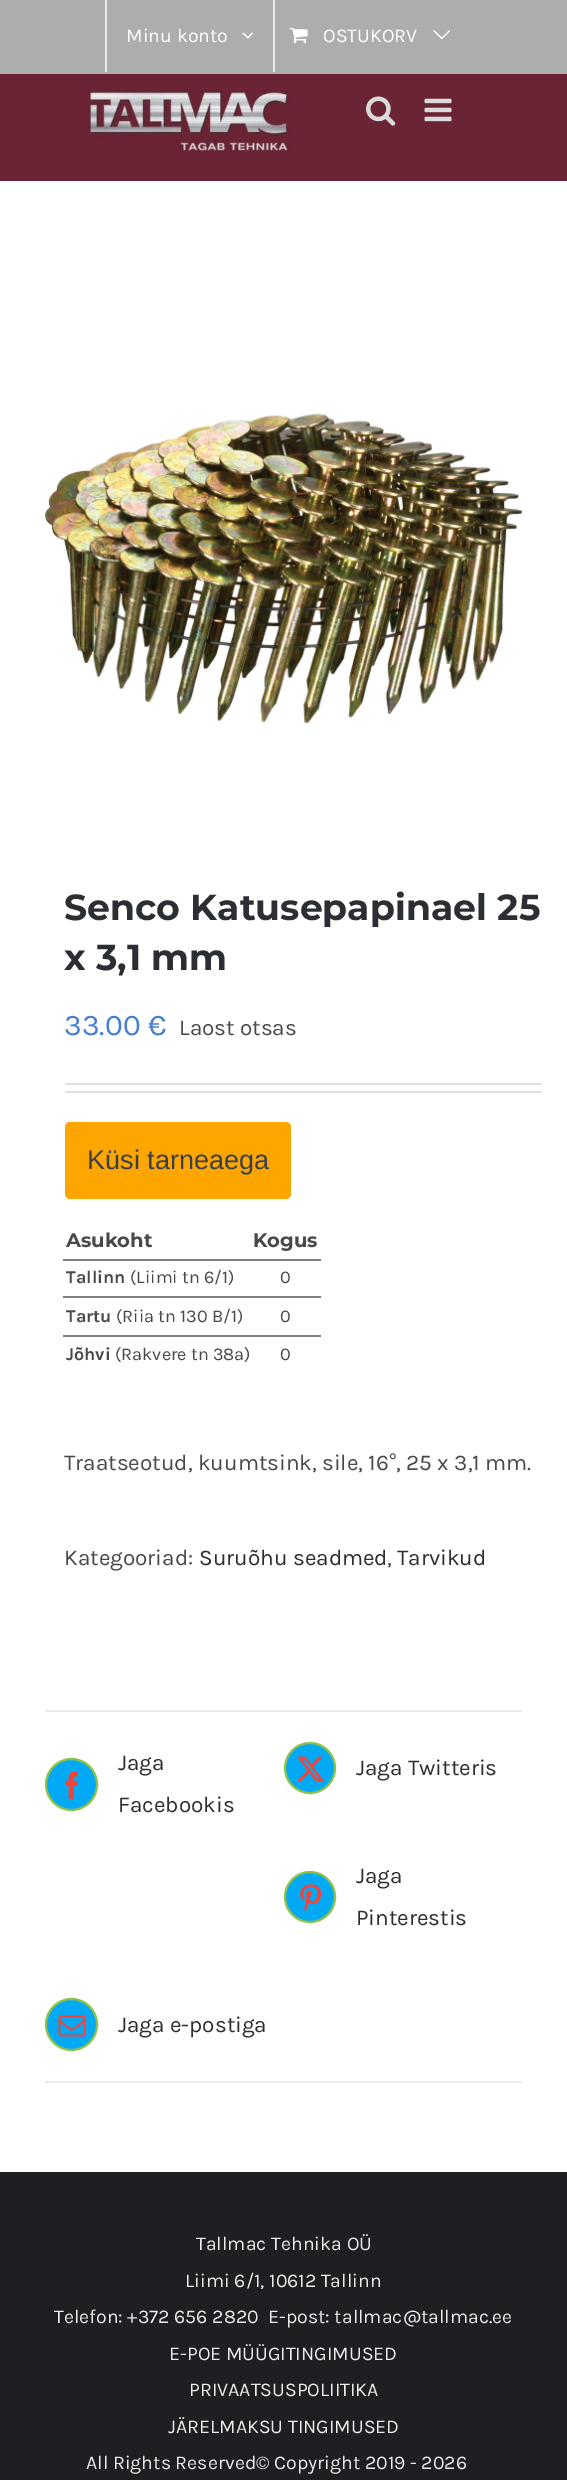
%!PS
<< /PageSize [567 2480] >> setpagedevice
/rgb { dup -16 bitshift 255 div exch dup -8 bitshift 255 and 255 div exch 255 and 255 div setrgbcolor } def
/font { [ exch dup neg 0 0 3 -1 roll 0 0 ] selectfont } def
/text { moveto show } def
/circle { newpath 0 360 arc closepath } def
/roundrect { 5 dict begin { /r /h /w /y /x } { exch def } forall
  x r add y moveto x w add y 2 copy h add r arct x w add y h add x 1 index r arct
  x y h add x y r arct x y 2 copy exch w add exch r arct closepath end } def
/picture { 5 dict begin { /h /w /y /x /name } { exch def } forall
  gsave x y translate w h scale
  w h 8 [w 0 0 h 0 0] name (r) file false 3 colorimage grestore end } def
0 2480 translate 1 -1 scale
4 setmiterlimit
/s1 { /Karla-Regular 19.5 font 16#FFFFFF rgb } def
/s2 { /Montserrat-Bold 36.25 font 16#2B2E32 rgb } def
/s3 { /Karla-Regular 30 font 16#427ED1 rgb } def
/s4 { /Karla-Regular 22.5 font 16#494949 rgb } def
/s5 { /LiberationSans-Regular 27 font 16#38414A rgb } def
/s6 { /Montserrat-Bold 19.5 font 16#494949 rgb } def
/s7 { /Karla-Bold 18 font 16#494949 rgb } def
/s8 { /Karla-Regular 18 font 16#494949 rgb } def
/s9 { /Karla-Regular 22.5 font 16#2B2E32 rgb } def
/s10 { /Karla-Regular 19.5 font 16#EAEAEA rgb } def
16#FFFFFF rgb
0 0 567 2480 rectfill
16#ADADAD rgb
0 0 567 74 rectfill
16#6B2434 rgb
0 74 567 107 rectfill
16#EAEAEA rgb
105 0 2 72 rectfill
s1
(Minu konto) 126 42 text
(pic1.raw) 242 32 12 7 picture
16#EAEAEA rgb
273 0 2 72 rectfill
(pic2.raw) 289 27 19 17 picture
s1
(OSTUKORV) 323 42 text
(pic3.raw) 433 30 17 10 picture
(pic4.raw) 88 90 204 63 picture
(pic5.raw) 366 96 30 30 picture
(pic6.raw) 424 98 28 24 picture
(pic7.raw) 45 413 477 311 picture
s2
(Senco Katusepapinael 25) 64 920 text
(x 3,1 mm) 64 970 text
s3
(33.00 €) 64 1035 text
s4
(Laost otsas) 179 1035 text
16#E0DEDE rgb
65 1083 477 2 rectfill
65 1091 477 2 rectfill
16#FFA500 rgb
65 1122 226 77 5 roundrect fill
s5
(Küsi tarneaega) 87 1169 text
s6
(Asukoht) 66 1247 text
(Kogus) 253 1247 text
16#808080 rgb
63 1259 258 2 rectfill
s7
(Tallinn) 66 1283 text
s8
(\(Liimi tn 6/1\)) 130 1283 text
(0) 280 1283 text
16#808080 rgb
63 1296 258 2 rectfill
s7
(Tartu) 66 1322 text
s8
(\(Riia tn 130 B/1\)) 116 1322 text
(0) 280 1322 text
16#808080 rgb
63 1335 258 2 rectfill
s7
(Jõhvi) 66 1360 text
s8
(\(Rakvere tn 38a\)) 115 1360 text
(0) 280 1360 text
s4
(Traatseotud, kuumtsink, sile, 16°, 25 x 3,1 mm.) 64 1470 text
(Kategooriad:) 64 1565 text
s9
(Suruõhu seadmed) 199 1565 text
s4
(,) 387 1565 text
s9
(Tarvikud) 397 1565 text
16#EAEAEA rgb
45 1710 477 2 rectfill
45 2081 477 2 rectfill
16#03A9F4 rgb
71.5 1784.5 25.5 circle gsave fill grestore
16#8BC34A rgb
2 setlinewidth
stroke
(pic8.raw) 65 1771 13 28 picture
s9
(Jaga) 118 1770 text
(Facebookis) 118 1812 text
16#03A9F4 rgb
310 1768 25 circle gsave fill grestore
16#8BC34A rgb
stroke
(pic9.raw) 297 1756 27 26 picture
s9
(Jaga Twitteris) 356 1775 text
16#03A9F4 rgb
310 1897 25 circle gsave fill grestore
16#8BC34A rgb
stroke
(pic10.raw) 300 1884 22 28 picture
s9
(Jaga) 356 1883 text
(Pinterestis) 356 1925 text
16#03A9F4 rgb
71.5 2024.5 25.5 circle gsave fill grestore
16#8BC34A rgb
stroke
(pic11.raw) 58 2015 28 22 picture
s9
(Jaga e-postiga) 118 2032 text
16#1D1F22 rgb
0 2172 567 308 rectfill
s10
(Tallmac Tehnika OÜ) 196 2250 text
(Liimi 6/1, 10612 Tallinn) 185 2287 text
(Telefon: +372 656 2820) 54 2323 text
(E-post: tallmac@tallmac.ee) 268 2323 text
(E-POE MÜÜGITINGIMUSED) 169 2360 text
(PRIVAATSUSPOLIITIKA) 189 2396 text
(JÄRELMAKSU TINGIMUSED) 168 2433 text
(All Rights Reserved© Copyright 2019 - 2026) 86 2469 text
showpage
